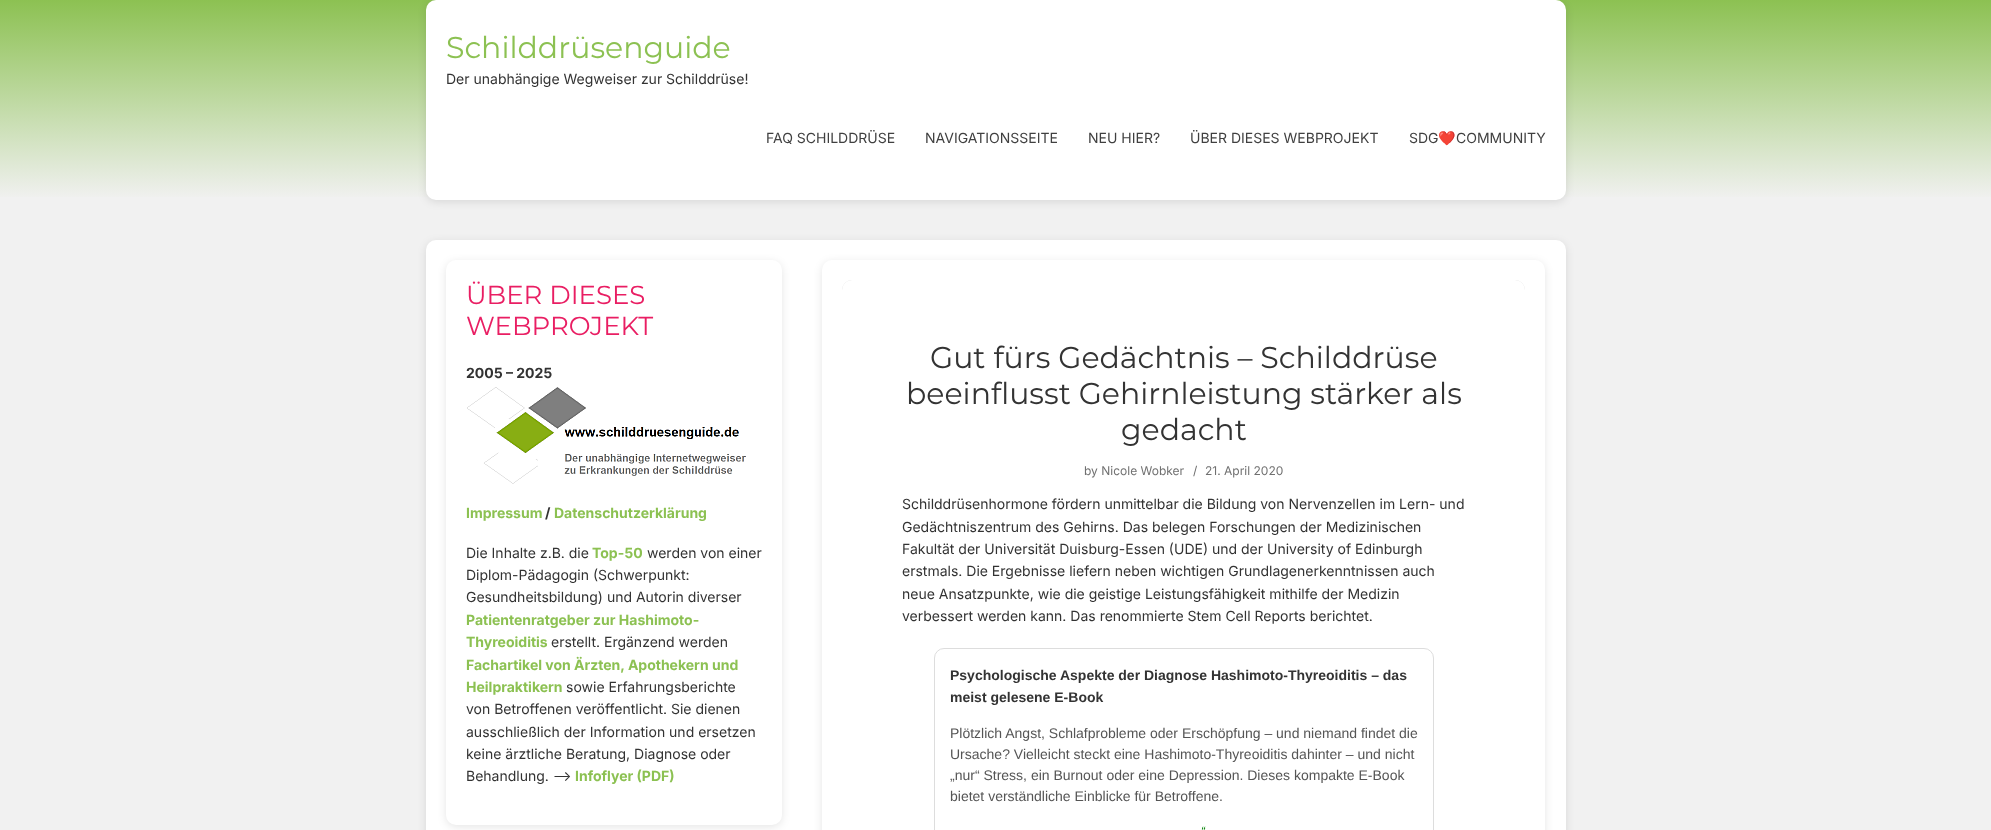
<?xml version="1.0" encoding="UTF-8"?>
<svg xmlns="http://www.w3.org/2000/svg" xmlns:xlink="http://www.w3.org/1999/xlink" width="1991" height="830">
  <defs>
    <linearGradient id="g1" gradientUnits="userSpaceOnUse" x1="996" y1="0" x2="996" y2="200"><stop offset="0" stop-color="#8cc152" /><stop offset="1" stop-color="#f1f1f1" /></linearGradient>
  </defs>
  <rect width="100%" height="100%" fill="#f1f1f1" />
  <rect width="1991" height="197" fill="url(#g1)" />
  <rect x="426" y="2" width="1140" height="200" rx="10" fill="#000000" fill-opacity="0.1" filter="blur(4px)" />
  <rect x="426" width="1140" height="200" rx="10" fill="#ffffff" />
  <rect x="426" y="242" width="1140" height="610" rx="10" fill="#000000" fill-opacity="0.1" filter="blur(4px)" />
  <rect x="426" y="240" width="1140" height="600" rx="10" fill="#ffffff" />
  <rect x="446" y="262" width="336" height="565" rx="10" fill="#000000" fill-opacity="0.1" filter="blur(4px)" />
  <rect x="446" y="260" width="336" height="565" rx="10" fill="#ffffff" />
  <image x="467" y="387" width="279" height="97" xlink:href="image1.png" />
  <rect x="822" y="262" width="723" height="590" rx="10" fill="#000000" fill-opacity="0.1" filter="blur(4px)" />
  <rect x="822" y="260" width="723" height="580" rx="10" fill="#ffffff" />
  <rect x="842" y="280" width="683" height="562" rx="10" fill="#000000" fill-opacity="0.15" filter="blur(0.5px)" />
  <rect x="842" y="280" width="683" height="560" rx="10" fill="#ffffff" />
  <rect x="934.5" y="648.5" width="499" height="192" rx="9.5" fill="none" stroke="#dddddd" />
  <text x="446" y="58" style="font-family: Montserrat; font-size: 30px; fill: #8cc152">Schilddrüsenguide</text>
  <text x="446" y="84" style="font-family: Inter; font-size: 14px; fill: #333333">Der unabhängige Wegweiser zur Schilddrüse!</text>
  <text x="766" y="143" style="font-family: Inter; font-size: 14px; fill: #404040">FAQ SCHILDDRÜSE</text>
  <text x="925" y="143" style="font-family: Inter; font-size: 14px; fill: #404040">NAVIGATIONSSEITE</text>
  <text x="1088" y="143" style="font-family: Inter; font-size: 14px; fill: #404040">NEU HIER?</text>
  <text x="1190" y="143" style="font-family: Inter; font-size: 14px; fill: #404040">ÜBER DIESES WEBPROJEKT</text>
  <text x="1409" y="143" style="font-family: Inter; font-size: 14px; fill: #404040">SDG</text>
  <text x="1438" y="143" style="font-family: Noto Color Emoji; font-size: 14px; fill: #404040">❤️</text>
  <text x="1456" y="143" style="font-family: Inter; font-size: 14px; fill: #404040">COMMUNITY</text>
  <text x="466" y="304" style="font-family: Montserrat; font-size: 26px; fill: #e91e63">ÜBER DIESES</text>
  <text x="466" y="335" style="font-family: Montserrat; font-size: 26px; fill: #e91e63">WEBPROJEKT</text>
  <text x="466" y="378" style="font-family: Inter; font-size: 14px; font-weight: bold; fill: #333333">2005 – 2025</text>
  <text x="466" y="518" style="font-family: Inter; font-size: 14px; font-weight: bold; fill: #8cc152">Impressum</text>
  <text x="545" y="518" style="font-family: Inter; font-size: 14px; font-weight: bold; fill: #333333">/</text>
  <text x="554" y="518" style="font-family: Inter; font-size: 14px; font-weight: bold; fill: #8cc152">Datenschutzerklärung</text>
  <text x="466" y="558" style="font-family: Inter; font-size: 14px; fill: #333333">Die Inhalte z.B. die</text>
  <text x="592" y="558" style="font-family: Inter; font-size: 14px; font-weight: bold; fill: #8cc152">Top-50</text>
  <text x="647" y="558" style="font-family: Inter; font-size: 14px; fill: #333333">werden von einer</text>
  <text x="466" y="580" style="font-family: Inter; font-size: 14px; fill: #333333">Diplom-Pädagogin (Schwerpunkt:</text>
  <text x="466" y="602" style="font-family: Inter; font-size: 14px; fill: #333333">Gesundheitsbildung) und Autorin diverser</text>
  <text x="466" y="625" style="font-family: Inter; font-size: 14px; font-weight: bold; fill: #8cc152">Patientenratgeber zur Hashimoto-</text>
  <text x="466" y="647" style="font-family: Inter; font-size: 14px; font-weight: bold; fill: #8cc152">Thyreoiditis</text>
  <text x="551" y="647" style="font-family: Inter; font-size: 14px; fill: #333333">erstellt. Ergänzend werden</text>
  <text x="466" y="670" style="font-family: Inter; font-size: 14px; font-weight: bold; fill: #8cc152">Fachartikel von Ärzten, Apothekern und</text>
  <text x="466" y="692" style="font-family: Inter; font-size: 14px; font-weight: bold; fill: #8cc152">Heilpraktikern</text>
  <text x="566" y="692" style="font-family: Inter; font-size: 14px; fill: #333333">sowie Erfahrungsberichte</text>
  <text x="466" y="714" style="font-family: Inter; font-size: 14px; fill: #333333">von Betroffenen veröffentlicht. Sie dienen</text>
  <text x="466" y="737" style="font-family: Inter; font-size: 14px; fill: #333333">ausschließlich der Information und ersetzen</text>
  <text x="466" y="759" style="font-family: Inter; font-size: 14px; fill: #333333">keine ärztliche Beratung, Diagnose oder</text>
  <text x="466" y="781" style="font-family: Inter; font-size: 14px; fill: #333333">Behandlung. –&gt;</text>
  <text x="575" y="781" style="font-family: Inter; font-size: 14px; font-weight: bold; fill: #8cc152">Infoflyer (PDF)</text>
  <text x="930" y="368" style="font-family: Montserrat; font-size: 30px; fill: #333333">Gut fürs Gedächtnis – Schilddrüse</text>
  <text x="906" y="404" style="font-family: Montserrat; font-size: 30px; fill: #333333">beeinflusst Gehirnleistung stärker als</text>
  <text x="1121" y="440" style="font-family: Montserrat; font-size: 30px; fill: #333333">gedacht</text>
  <text x="1084" y="475" style="font-family: Inter; font-size: 12px; fill: #707070">by Nicole Wobker</text>
  <text x="1193" y="475" style="font-family: Inter; font-size: 12px; fill: #707070">/</text>
  <text x="1205" y="475" style="font-family: Inter; font-size: 12px; fill: #707070">21. April 2020</text>
  <text x="902" y="509" style="font-family: Inter; font-size: 14px; fill: #333333">Schilddrüsenhormone fördern unmittelbar die Bildung von Nervenzellen im Lern- und</text>
  <text x="902" y="532" style="font-family: Inter; font-size: 14px; fill: #333333">Gedächtniszentrum des Gehirns. Das belegen Forschungen der Medizinischen</text>
  <text x="902" y="554" style="font-family: Inter; font-size: 14px; fill: #333333">Fakultät der Universität Duisburg-Essen (UDE) und der University of Edinburgh</text>
  <text x="902" y="576" style="font-family: Inter; font-size: 14px; fill: #333333">erstmals. Die Ergebnisse liefern neben wichtigen Grundlagenerkenntnissen auch</text>
  <text x="902" y="599" style="font-family: Inter; font-size: 14px; fill: #333333">neue Ansatzpunkte, wie die geistige Leistungsfähigkeit mithilfe der Medizin</text>
  <text x="902" y="621" style="font-family: Inter; font-size: 14px; fill: #333333">verbessert werden kann. Das renommierte Stem Cell Reports berichtet.</text>
  <text x="950" y="680" style="font-family: Liberation Sans; font-size: 14px; font-weight: bold; fill: #333333">Psychologische Aspekte der Diagnose Hashimoto-Thyreoiditis – das</text>
  <text x="950" y="702" style="font-family: Liberation Sans; font-size: 14px; font-weight: bold; fill: #333333">meist gelesene E-Book</text>
  <text x="950" y="738" style="font-family: Liberation Sans; font-size: 14px; fill: #555555">Plötzlich Angst, Schlafprobleme oder Erschöpfung – und niemand findet die</text>
  <text x="950" y="759" style="font-family: Liberation Sans; font-size: 14px; fill: #555555">Ursache? Vielleicht steckt eine Hashimoto-Thyreoiditis dahinter – und nicht</text>
  <text x="950" y="780" style="font-family: Liberation Sans; font-size: 14px; fill: #555555">„nur“ Stress, ein Burnout oder eine Depression. Dieses kompakte E-Book</text>
  <text x="950" y="801" style="font-family: Liberation Sans; font-size: 14px; fill: #555555">bietet verständliche Einblicke für Betroffene.</text>
  <text x="1201" y="835" style="font-family: Liberation Sans; font-size: 12px; font-style: italic; fill: #008000">“</text>
</svg>
